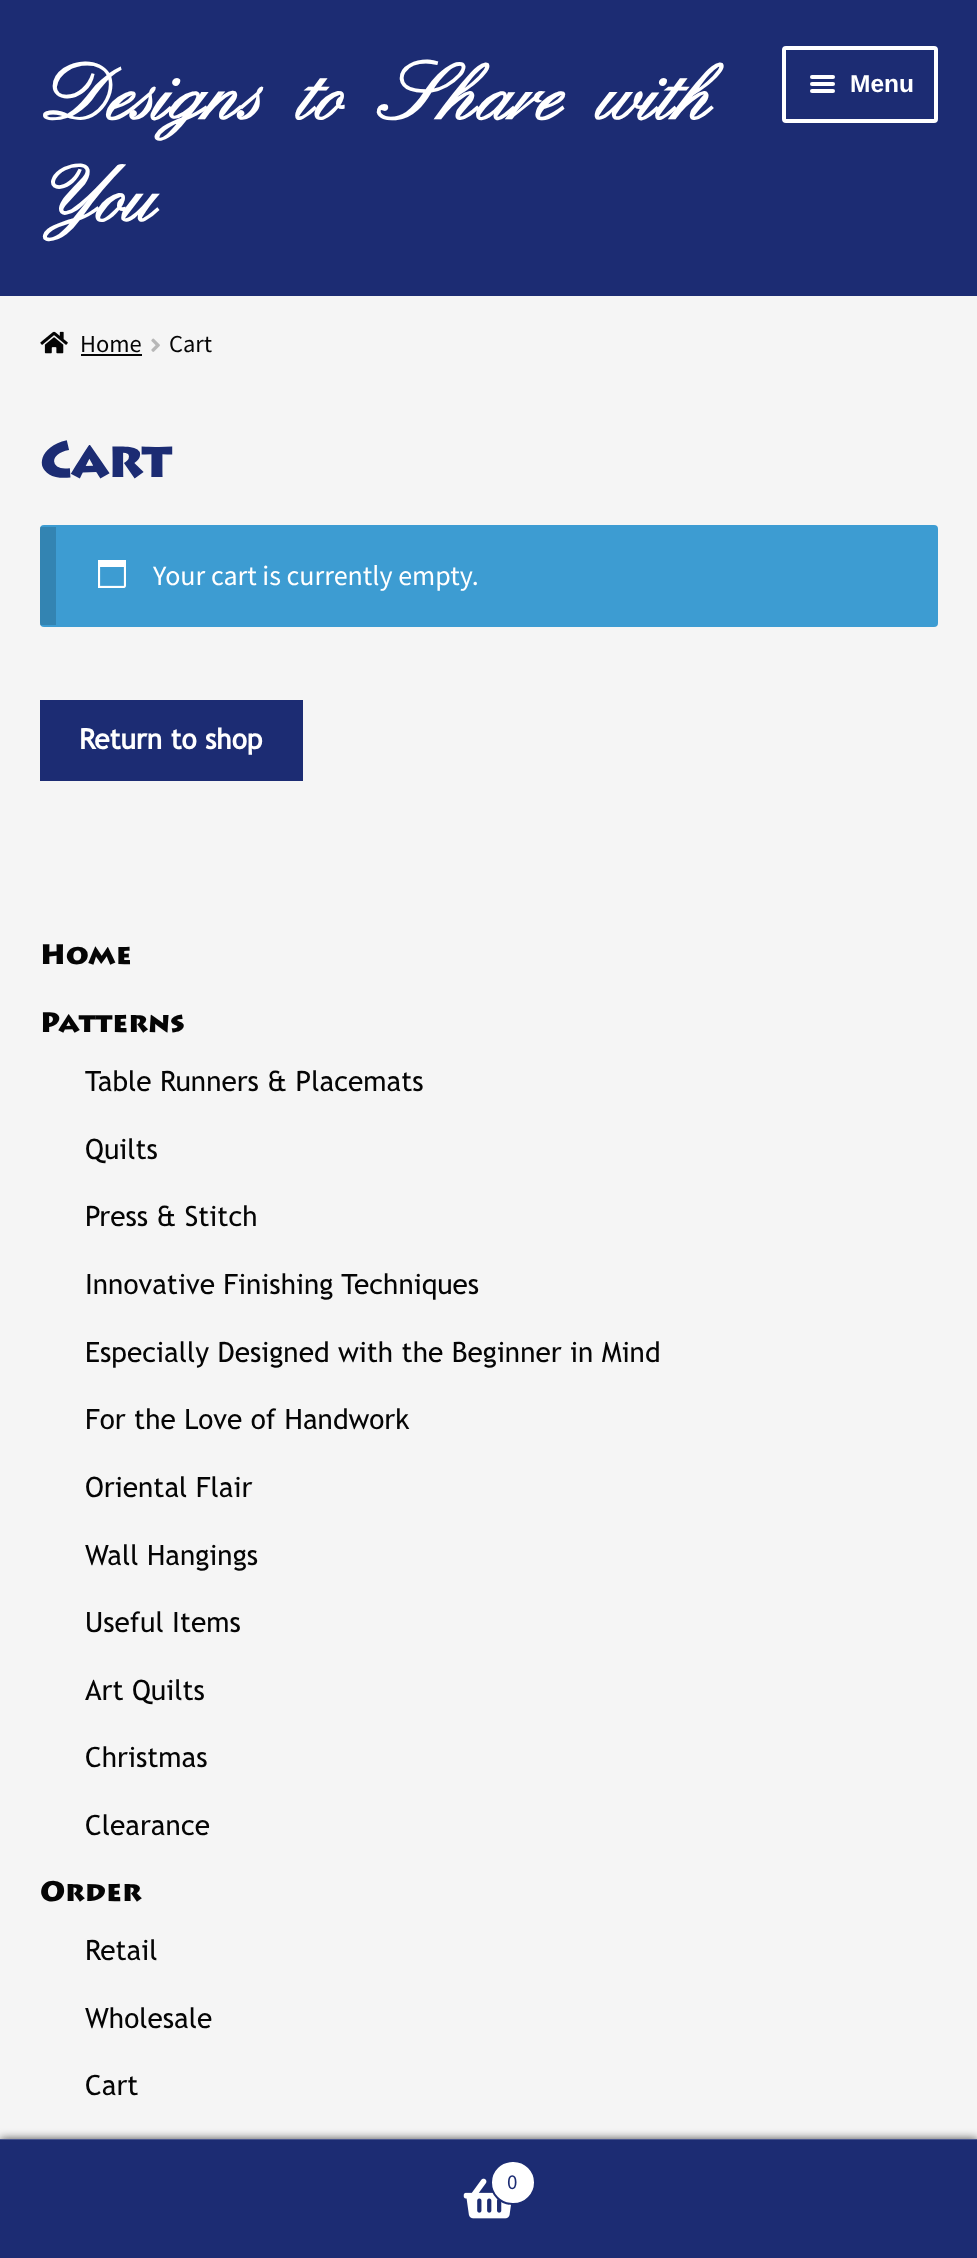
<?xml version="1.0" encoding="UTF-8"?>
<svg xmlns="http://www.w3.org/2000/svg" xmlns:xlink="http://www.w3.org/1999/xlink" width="977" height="2258">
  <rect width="100%" height="100%" fill="#f5f5f5" />
  <rect width="977" height="296" fill="#1c2c73" />
  <rect x="784" y="48" width="152" height="73" rx="2" fill="none" stroke="#ffffff" stroke-width="4" />
  <rect x="810" y="75" width="25" height="4" rx="2" fill="#ffffff" />
  <rect x="810" y="82" width="25" height="4" rx="2" fill="#ffffff" />
  <rect x="810" y="89" width="25" height="4" rx="2" fill="#ffffff" />
  <image x="40" y="331" width="28" height="23" xlink:href="image1.png" />
  <rect x="81" y="354" width="61" height="2" fill="#050505" />
  <image x="151" y="338" width="9" height="14" xlink:href="image2.png" />
  <rect x="40" y="525" width="898" height="102" rx="4" fill="#3d9cd2" />
  <rect x="40" y="527" width="16" height="98" fill="#000000" fill-opacity="0.15" />
  <image x="98" y="560" width="28" height="28" xlink:href="image3.png" />
  <rect x="40" y="700" width="263" height="81" fill="#1c2c73" />
  <rect y="2139" width="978" height="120" fill="#000000" fill-opacity="0.7" filter="blur(5px)" />
  <rect y="2139" width="977" height="1" fill="#49568f" />
  <rect y="2140" width="977" height="118" fill="#1c2c73" />
  <image x="463" y="2178" width="49" height="41" xlink:href="image4.png" />
  <rect x="491" y="2161" width="44" height="43" rx="21.5" fill="#ffffff" stroke="#1c2c73" stroke-width="2" />
  <text x="40" y="119" style="font-family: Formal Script; font-size: 84px; font-weight: bold; letter-spacing: -1.75px; fill: #ffffff">Designs to Share with</text>
  <text x="40" y="221" style="font-family: Formal Script; font-size: 84px; font-weight: bold; letter-spacing: -1.75px; fill: #ffffff">You</text>
  <text x="850" y="92" style="font-family: Liberation Sans; font-size: 24.5px; font-weight: bold; fill: #ffffff">Menu</text>
  <text x="80" y="352" style="font-family: Source Sans Pro; font-size: 24.5px; fill: #050505">Home</text>
  <text x="169" y="352" style="font-family: Source Sans Pro; font-size: 24.5px; fill: #050505">Cart</text>
  <text x="40" y="477" style="font-family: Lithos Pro; font-size: 50.5px; font-weight: 900; letter-spacing: -1.75px; fill: #1c2c73">Cart</text>
  <text x="153" y="585" style="font-family: Source Sans Pro; font-size: 28px; fill: #ffffff">Your cart is currently empty.</text>
  <text x="79" y="749" style="font-family: Trebuchet MS; font-size: 28px; font-weight: bold; fill: #ffffff">Return to shop</text>
  <text x="40" y="964" style="font-family: Lithos Pro; font-size: 28px; font-weight: 900; fill: #050505">Home</text>
  <text x="40" y="1032" style="font-family: Lithos Pro; font-size: 28px; font-weight: 900; fill: #050505">Patterns</text>
  <text x="85" y="1091" style="font-family: Trebuchet MS; font-size: 28px; fill: #050505">Table Runners &amp; Placemats</text>
  <text x="85" y="1159" style="font-family: Trebuchet MS; font-size: 28px; fill: #050505">Quilts</text>
  <text x="85" y="1226" style="font-family: Trebuchet MS; font-size: 28px; fill: #050505">Press &amp; Stitch</text>
  <text x="85" y="1294" style="font-family: Trebuchet MS; font-size: 28px; fill: #050505">Innovative Finishing Techniques</text>
  <text x="85" y="1362" style="font-family: Trebuchet MS; font-size: 28px; fill: #050505">Especially Designed with the Beginner in Mind</text>
  <text x="85" y="1429" style="font-family: Trebuchet MS; font-size: 28px; fill: #050505">For the Love of Handwork</text>
  <text x="85" y="1497" style="font-family: Trebuchet MS; font-size: 28px; fill: #050505">Oriental Flair</text>
  <text x="85" y="1565" style="font-family: Trebuchet MS; font-size: 28px; fill: #050505">Wall Hangings</text>
  <text x="85" y="1632" style="font-family: Trebuchet MS; font-size: 28px; fill: #050505">Useful Items</text>
  <text x="85" y="1700" style="font-family: Trebuchet MS; font-size: 28px; fill: #050505">Art Quilts</text>
  <text x="85" y="1767" style="font-family: Trebuchet MS; font-size: 28px; fill: #050505">Christmas</text>
  <text x="85" y="1835" style="font-family: Trebuchet MS; font-size: 28px; fill: #050505">Clearance</text>
  <text x="40" y="1901" style="font-family: Lithos Pro; font-size: 28px; font-weight: 900; fill: #050505">Order</text>
  <text x="85" y="1960" style="font-family: Trebuchet MS; font-size: 28px; fill: #050505">Retail</text>
  <text x="85" y="2028" style="font-family: Trebuchet MS; font-size: 28px; fill: #050505">Wholesale</text>
  <text x="85" y="2095" style="font-family: Trebuchet MS; font-size: 28px; fill: #050505">Cart</text>
  <text x="507" y="2189" style="font-family: Source Sans Pro; font-size: 21px; fill: #1c2c73">0</text>
</svg>
